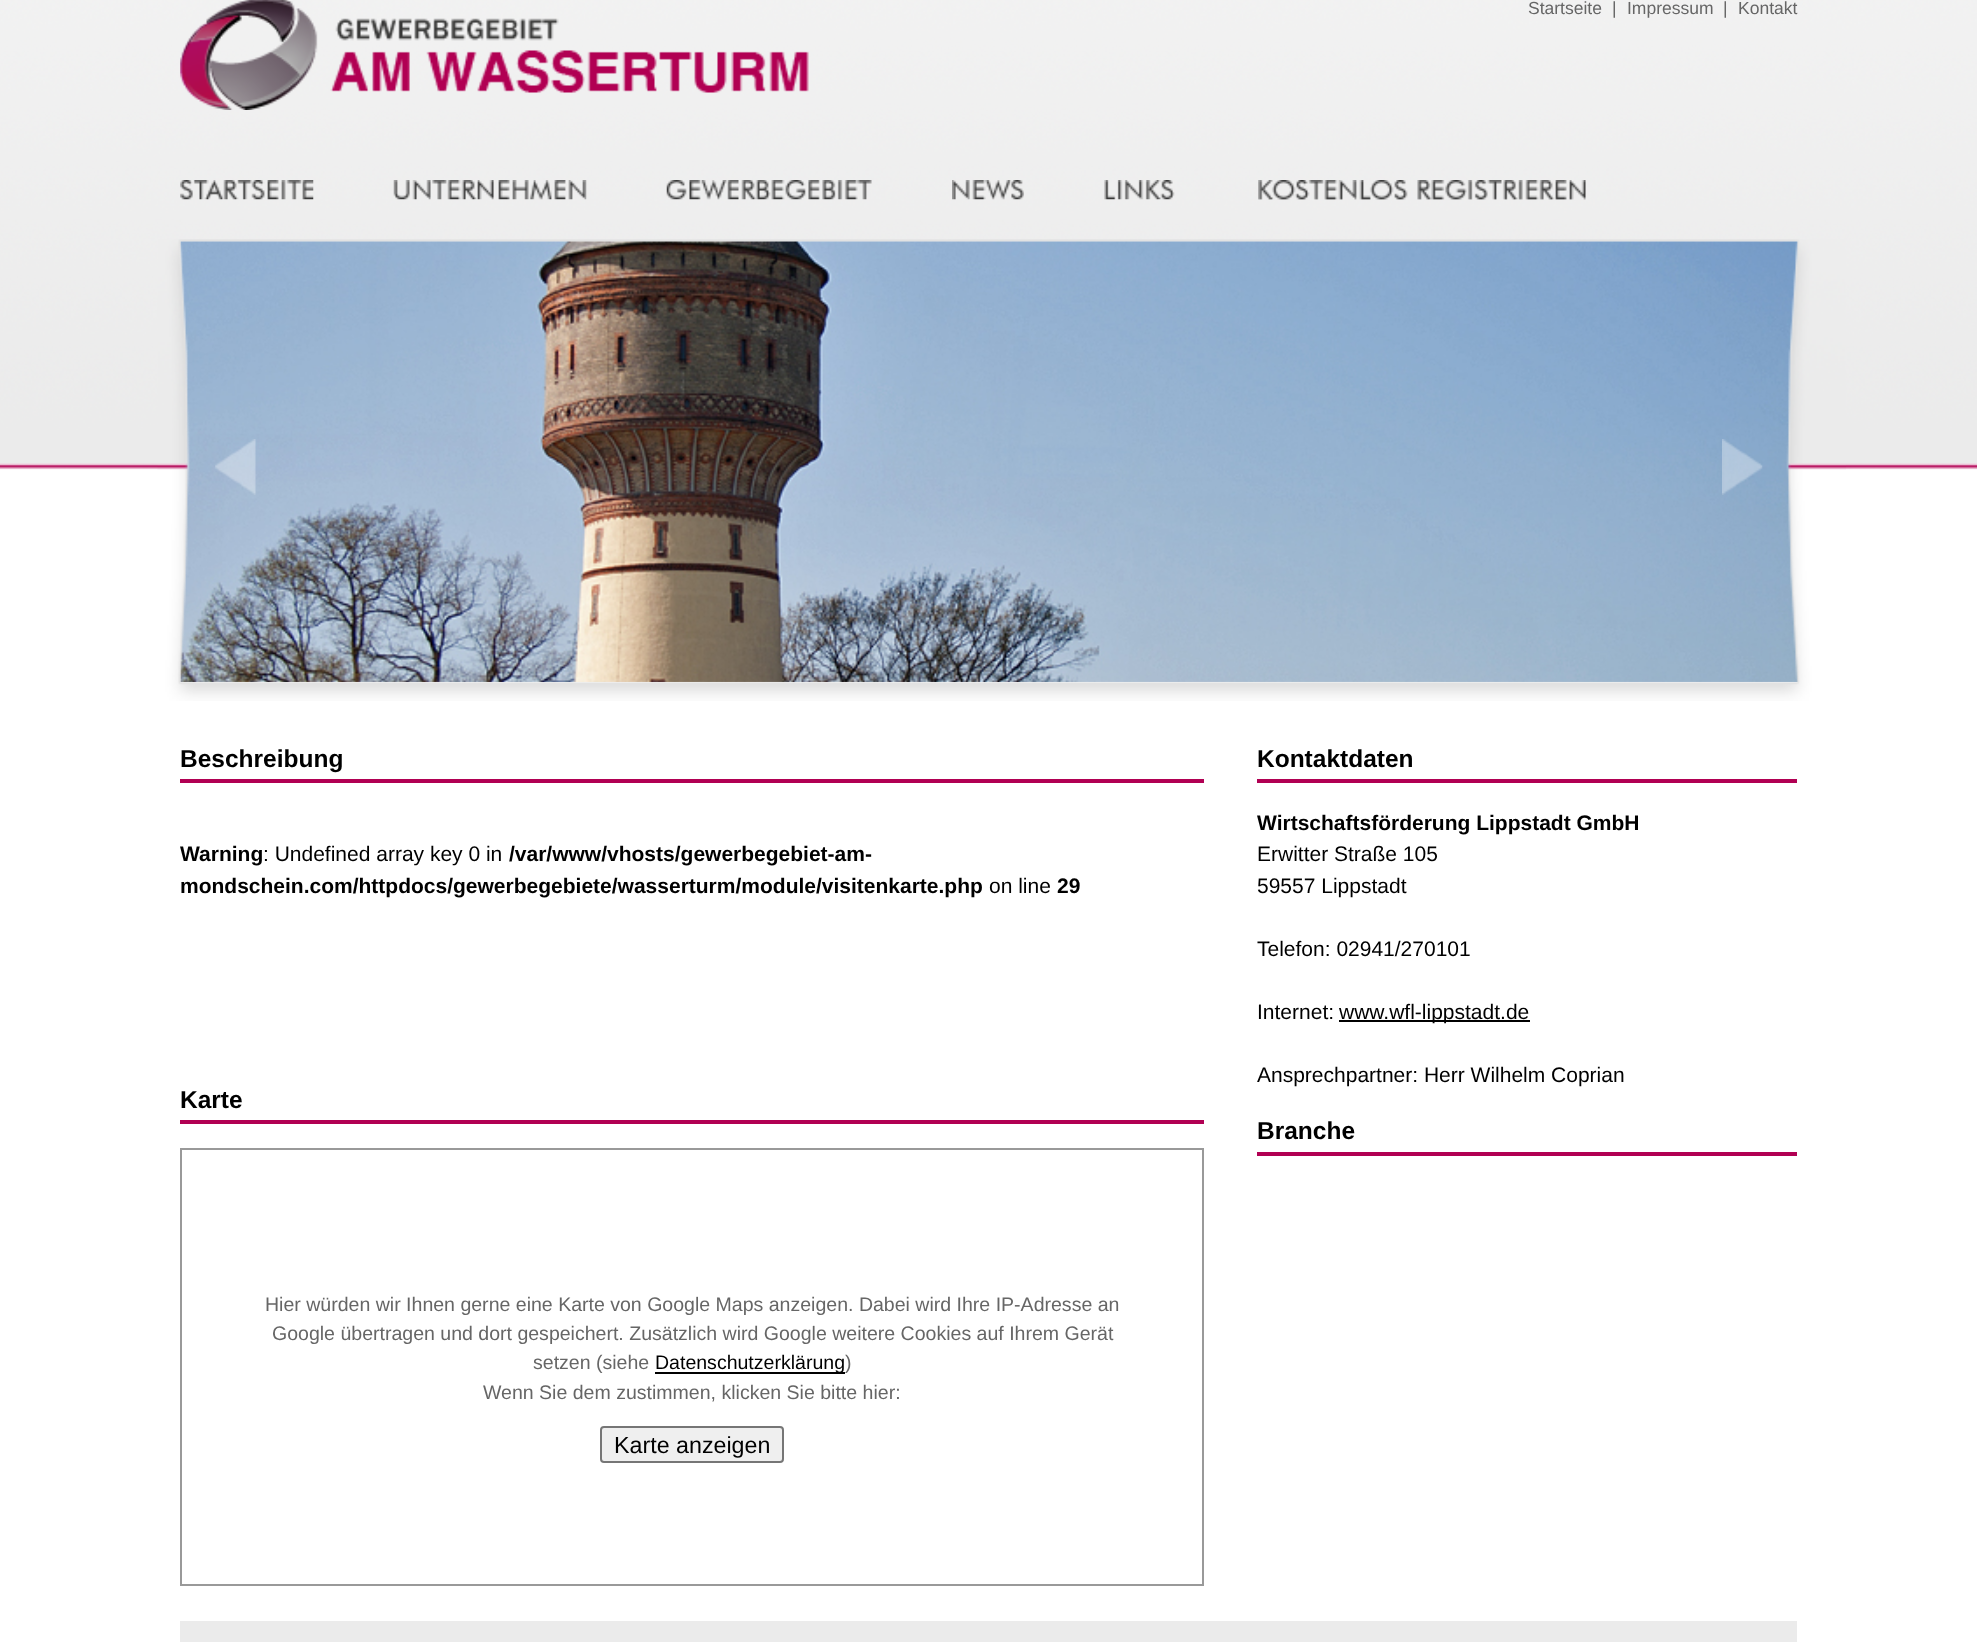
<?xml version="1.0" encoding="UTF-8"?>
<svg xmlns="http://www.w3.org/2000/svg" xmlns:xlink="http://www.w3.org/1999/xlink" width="1977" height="1642">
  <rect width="100%" height="100%" fill="#ffffff" />
  <image x="0" y="0" width="1977" height="470" xlink:href="image1.png" />
  <image x="180" y="0" width="629" height="110" xlink:href="image2.png" />
  <image x="180" y="180" width="134" height="20" xlink:href="image3.png" />
  <image x="393" y="180" width="194" height="20" xlink:href="image4.png" />
  <image x="666" y="180" width="206" height="20" xlink:href="image5.png" />
  <image x="952" y="180" width="72" height="20" xlink:href="image6.png" />
  <image x="1104" y="180" width="71" height="20" xlink:href="image7.png" />
  <image x="1258" y="180" width="328" height="20" xlink:href="image8.png" />
  <image x="180" y="241" width="1618" height="442" xlink:href="image10.png" />
  <image x="157" y="239" width="1689" height="462" xlink:href="image9.png" />
  <image x="215" y="439" width="41" height="56" xlink:href="image11.png" />
  <image x="1722" y="439" width="41" height="56" xlink:href="image12.png" />
  <rect x="180" y="779" width="1024" height="4" fill="#b10053" />
  <rect x="180" y="1120" width="1024" height="4" fill="#b10053" />
  <rect x="181" y="1149" width="1022" height="436" fill="none" stroke="#999999" stroke-width="2" />
  <rect x="655" y="1372" width="190" height="2" fill="#000000" />
  <rect x="601" y="1427" width="182" height="35" rx="3" fill="#efefef" stroke="#767676" stroke-width="2" />
  <rect x="1257" y="779" width="540" height="4" fill="#b10053" />
  <rect x="1339" y="1020" width="191" height="2" fill="#000000" />
  <rect x="1257" y="1152" width="540" height="4" fill="#b10053" />
  <rect x="180" y="1621" width="1617" height="21" fill="#ebebeb" />
  <text x="1528" y="14" style="font-family: Liberation Sans; font-size: 17.5px; fill: #666666">Startseite</text>
  <text x="1612" y="14" style="font-family: Liberation Sans; font-size: 17.5px; fill: #666666">|</text>
  <text x="1627" y="14" style="font-family: Liberation Sans; font-size: 17.5px; fill: #666666">Impressum</text>
  <text x="1723" y="14" style="font-family: Liberation Sans; font-size: 17.5px; fill: #666666">|</text>
  <text x="1738" y="14" style="font-family: Liberation Sans; font-size: 17.5px; fill: #666666">Kontakt</text>
  <text x="180" y="767" style="font-family: Liberation Sans; font-size: 24.5px; font-weight: bold; fill: #000000">Beschreibung</text>
  <text x="180" y="861" style="font-family: Liberation Sans; font-size: 21px; font-weight: bold; fill: #000000">Warning</text>
  <text x="263" y="861" style="font-family: Liberation Sans; font-size: 21px; fill: #000000">: Undefined array key 0 in</text>
  <text x="509" y="861" style="font-family: Liberation Sans; font-size: 21px; font-weight: bold; fill: #000000">/var/www/vhosts/gewerbegebiet-am-</text>
  <text x="180" y="893" style="font-family: Liberation Sans; font-size: 21px; font-weight: bold; fill: #000000">mondschein.com/httpdocs/gewerbegebiete/wasserturm/module/visitenkarte.php</text>
  <text x="989" y="893" style="font-family: Liberation Sans; font-size: 21px; fill: #000000">on line</text>
  <text x="1057" y="893" style="font-family: Liberation Sans; font-size: 21px; font-weight: bold; fill: #000000">29</text>
  <text x="180" y="1108" style="font-family: Liberation Sans; font-size: 24.5px; font-weight: bold; fill: #000000">Karte</text>
  <text x="265" y="1311" style="font-family: Liberation Sans; font-size: 19.55px; fill: #666666">Hier würden wir Ihnen gerne eine Karte von Google Maps anzeigen. Dabei wird Ihre IP-Adresse an</text>
  <text x="272" y="1340" style="font-family: Liberation Sans; font-size: 19.55px; fill: #666666">Google übertragen und dort gespeichert. Zusätzlich wird Google weitere Cookies auf Ihrem Gerät</text>
  <text x="533" y="1369" style="font-family: Liberation Sans; font-size: 19.55px; fill: #666666">setzen (siehe</text>
  <text x="655" y="1369" style="font-family: Liberation Sans; font-size: 19.55px; fill: #000000">Datenschutzerklärung</text>
  <text x="845" y="1369" style="font-family: Liberation Sans; font-size: 19.55px; fill: #666666">)</text>
  <text x="483" y="1399" style="font-family: Liberation Sans; font-size: 19.55px; fill: #666666">Wenn Sie dem zustimmen, klicken Sie bitte hier:</text>
  <text x="614" y="1453" style="font-family: Liberation Sans; font-size: 23.25px; fill: #000000">Karte anzeigen</text>
  <text x="1257" y="767" style="font-family: Liberation Sans; font-size: 24.5px; font-weight: bold; fill: #000000">Kontaktdaten</text>
  <text x="1257" y="830" style="font-family: Liberation Sans; font-size: 21px; font-weight: bold; fill: #000000">Wirtschaftsförderung Lippstadt GmbH</text>
  <text x="1257" y="861" style="font-family: Liberation Sans; font-size: 21px; fill: #000000">Erwitter Straße 105</text>
  <text x="1257" y="893" style="font-family: Liberation Sans; font-size: 21px; fill: #000000">59557 Lippstadt</text>
  <text x="1257" y="956" style="font-family: Liberation Sans; font-size: 21px; fill: #000000">Telefon: 02941/270101</text>
  <text x="1257" y="1019" style="font-family: Liberation Sans; font-size: 21px; fill: #000000">Internet:</text>
  <text x="1339" y="1019" style="font-family: Liberation Sans; font-size: 21px; fill: #000000">www.wfl-lippstadt.de</text>
  <text x="1257" y="1082" style="font-family: Liberation Sans; font-size: 21px; fill: #000000">Ansprechpartner: Herr Wilhelm Coprian</text>
  <text x="1257" y="1139" style="font-family: Liberation Sans; font-size: 24.5px; font-weight: bold; fill: #000000">Branche</text>
</svg>
